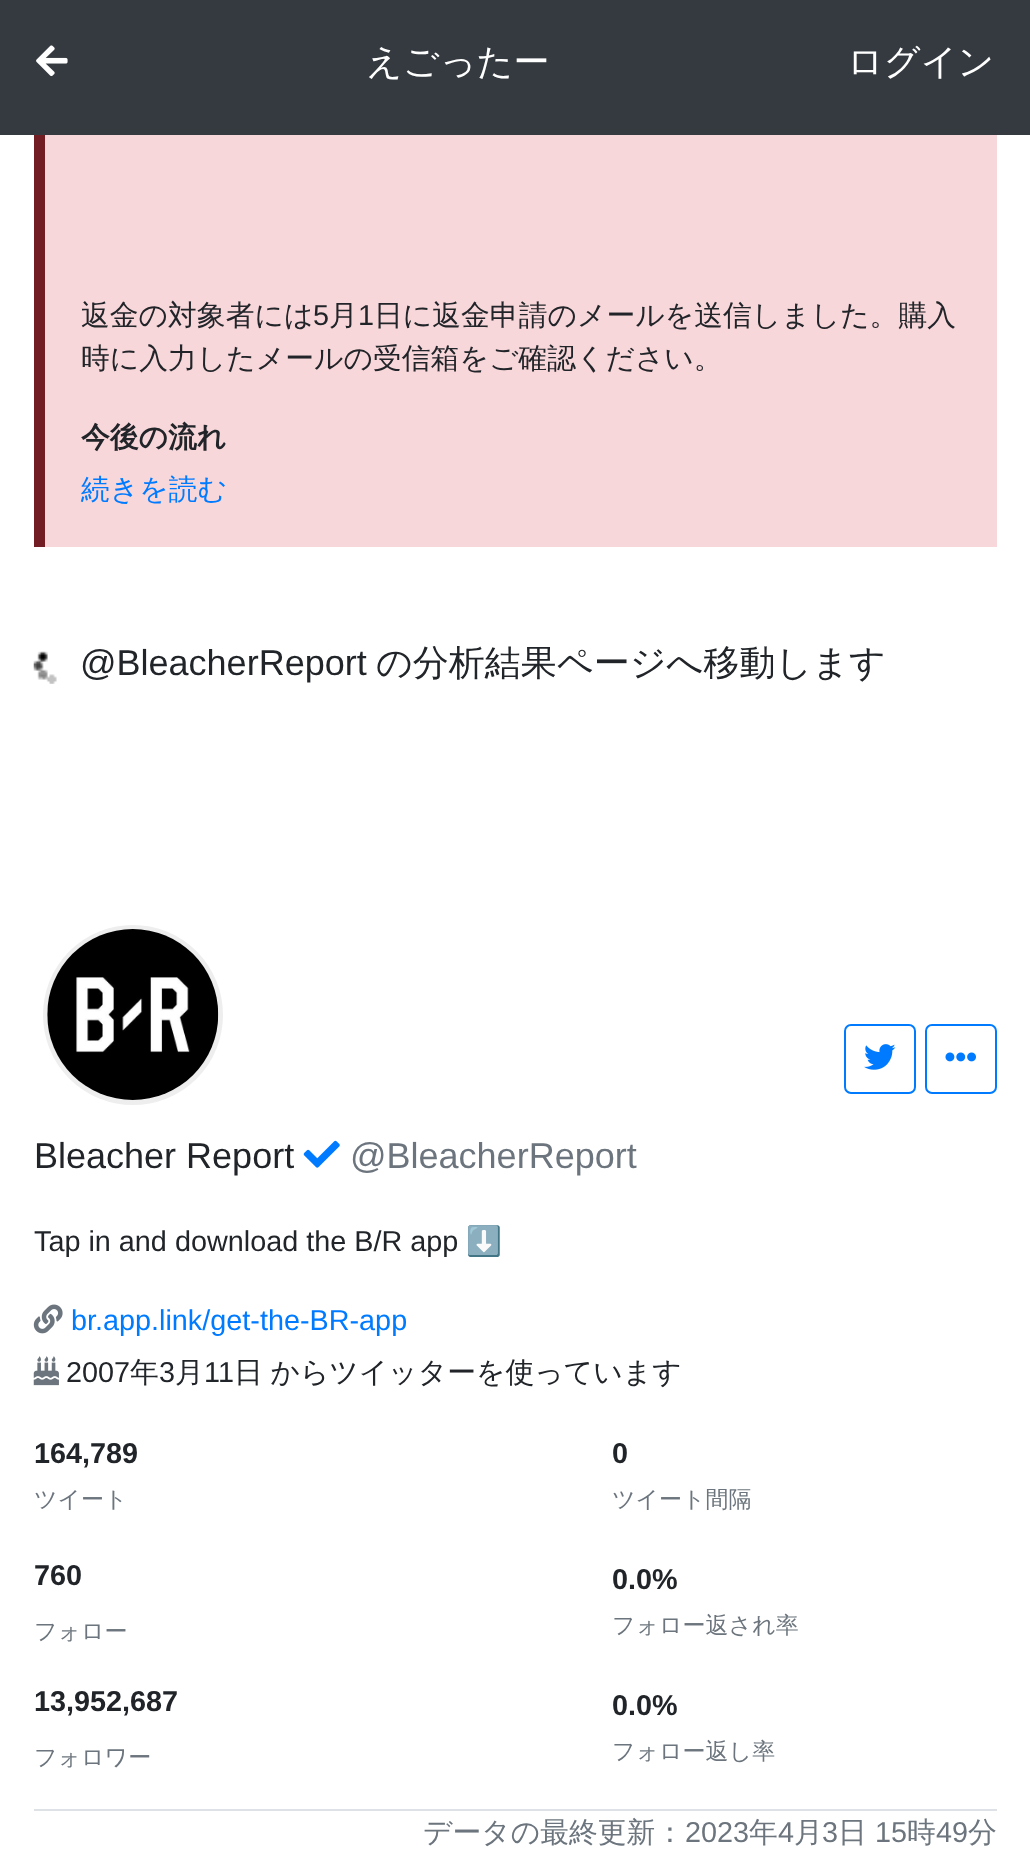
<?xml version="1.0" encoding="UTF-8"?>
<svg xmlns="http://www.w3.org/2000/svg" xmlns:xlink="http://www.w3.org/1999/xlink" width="1030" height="1853">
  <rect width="100%" height="100%" fill="#ffffff" />
  <rect width="1030" height="135" fill="#343a40" />
  <image x="36" y="45" width="32" height="32" xlink:href="image1.png" />
  <rect x="45" y="135" width="952" height="412" fill="#f8d7da" />
  <rect x="34" y="135" width="11" height="412" fill="#721c24" />
  <image x="33" y="651" width="24" height="33" xlink:href="image2.png" />
  <rect x="34" y="1809" width="963" height="2" fill="#dee2e6" />
  <circle cx="133" cy="1015" r="87.5" fill="none" stroke="#eeeeee" stroke-width="5" />
  <image x="47" y="929" width="172" height="171" xlink:href="image3.png" />
  <rect x="845" y="1025" width="70" height="68" rx="6" fill="none" stroke="#007bff" stroke-width="2" />
  <image x="864" y="1044" width="32" height="26" xlink:href="image4.png" />
  <rect x="926" y="1025" width="70" height="68" rx="6" fill="none" stroke="#007bff" stroke-width="2" />
  <image x="945" y="1052" width="31" height="10" xlink:href="image5.png" />
  <image x="303" y="1140" width="37" height="28" xlink:href="image6.png" />
  <image x="33" y="1304" width="30" height="30" xlink:href="image7.png" />
  <image x="33" y="1356" width="26" height="30" xlink:href="image8.png" />
  <text x="366" y="74" style="font-family: WenQuanYi Zen Hei; font-size: 36px; font-weight: 500; fill: #ffffff">えごったー</text>
  <text x="847" y="74" style="font-family: WenQuanYi Zen Hei; font-size: 36px; font-weight: 500; fill: #ffffff">ログイン</text>
  <text x="81" y="325" style="font-family: WenQuanYi Zen Hei; font-size: 28.8px; font-weight: 500; fill: #212529">返金の対象者には</text>
  <text x="313" y="325" style="font-family: Liberation Sans; font-size: 28.8px; fill: #212529">5</text>
  <text x="329" y="325" style="font-family: WenQuanYi Zen Hei; font-size: 28.8px; font-weight: 500; fill: #212529">月</text>
  <text x="358" y="325" style="font-family: Liberation Sans; font-size: 28.8px; fill: #212529">1</text>
  <text x="374" y="325" style="font-family: WenQuanYi Zen Hei; font-size: 28.8px; font-weight: 500; fill: #212529">日に返金申請のメールを送信しました。購入</text>
  <text x="81" y="368" style="font-family: WenQuanYi Zen Hei; font-size: 28.8px; font-weight: 500; fill: #212529">時に入力したメールの受信箱をご確認ください。</text>
  <text x="81" y="447" style="font-family: WenQuanYi Zen Hei; font-size: 28.8px; font-weight: bold; fill: #212529">今後の流れ</text>
  <text x="81" y="499" style="font-family: WenQuanYi Zen Hei; font-size: 28.8px; font-weight: 500; fill: #007bff">続きを読む</text>
  <text x="80" y="675" style="font-family: Liberation Sans; font-size: 36px; fill: #212529">@BleacherReport</text>
  <text x="376" y="675" style="font-family: WenQuanYi Zen Hei; font-size: 36px; font-weight: 500; fill: #212529">の分析結果ページへ移動します</text>
  <text x="34" y="1168" style="font-family: Liberation Sans; font-size: 36px; fill: #212529">Bleacher Report</text>
  <text x="350" y="1168" style="font-family: Liberation Sans; font-size: 36px; fill: #6c757d">@BleacherReport</text>
  <text x="34" y="1251" style="font-family: Liberation Sans; font-size: 28.8px; fill: #212529">Tap in and download the B/R app</text>
  <text x="466" y="1251" style="font-family: Noto Color Emoji; font-size: 28.8px; fill: #212529">⬇️</text>
  <text x="71" y="1330" style="font-family: Liberation Sans; font-size: 28.8px; fill: #007bff">br.app.link/get-the-BR-app</text>
  <text x="66" y="1382" style="font-family: Liberation Sans; font-size: 28.8px; fill: #212529">2007</text>
  <text x="130" y="1382" style="font-family: WenQuanYi Zen Hei; font-size: 28.8px; font-weight: 500; fill: #212529">年</text>
  <text x="159" y="1382" style="font-family: Liberation Sans; font-size: 28.8px; fill: #212529">3</text>
  <text x="175" y="1382" style="font-family: WenQuanYi Zen Hei; font-size: 28.8px; font-weight: 500; fill: #212529">月</text>
  <text x="204" y="1382" style="font-family: Liberation Sans; font-size: 28.8px; fill: #212529">11</text>
  <text x="234" y="1382" word-spacing="-1" style="font-family: WenQuanYi Zen Hei; font-size: 28.8px; font-weight: 500; fill: #212529">日 からツイッターを使っています</text>
  <text x="34" y="1463" style="font-family: Liberation Sans; font-size: 28.8px; font-weight: bold; fill: #212529">164,789</text>
  <text x="34" y="1507" style="font-family: WenQuanYi Zen Hei; font-size: 23px; font-weight: 500; fill: #6c757d">ツイート</text>
  <text x="612" y="1463" style="font-family: Liberation Sans; font-size: 28.8px; font-weight: bold; fill: #212529">0</text>
  <text x="612" y="1507" style="font-family: WenQuanYi Zen Hei; font-size: 23px; font-weight: 500; fill: #6c757d">ツイート間隔</text>
  <text x="34" y="1585" style="font-family: Liberation Sans; font-size: 28.8px; font-weight: bold; fill: #212529">760</text>
  <text x="34" y="1639" style="font-family: WenQuanYi Zen Hei; font-size: 23px; font-weight: 500; fill: #6c757d">フォロー</text>
  <text x="612" y="1589" style="font-family: Liberation Sans; font-size: 28.8px; font-weight: bold; fill: #212529">0.0%</text>
  <text x="612" y="1633" style="font-family: WenQuanYi Zen Hei; font-size: 23px; font-weight: 500; fill: #6c757d">フォロー返され率</text>
  <text x="34" y="1711" style="font-family: Liberation Sans; font-size: 28.8px; font-weight: bold; fill: #212529">13,952,687</text>
  <text x="34" y="1765" style="font-family: WenQuanYi Zen Hei; font-size: 23px; font-weight: 500; fill: #6c757d">フォロワー</text>
  <text x="612" y="1715" style="font-family: Liberation Sans; font-size: 28.8px; font-weight: bold; fill: #212529">0.0%</text>
  <text x="612" y="1759" style="font-family: WenQuanYi Zen Hei; font-size: 23px; font-weight: 500; fill: #6c757d">フォロー返し率</text>
  <text x="423" y="1842" style="font-family: WenQuanYi Zen Hei; font-size: 28.8px; font-weight: 500; fill: #6c757d">データの最終更新：</text>
  <text x="685" y="1842" style="font-family: Liberation Sans; font-size: 28.8px; fill: #6c757d">2023</text>
  <text x="749" y="1842" style="font-family: WenQuanYi Zen Hei; font-size: 28.8px; font-weight: 500; fill: #6c757d">年</text>
  <text x="778" y="1842" style="font-family: Liberation Sans; font-size: 28.8px; fill: #6c757d">4</text>
  <text x="794" y="1842" style="font-family: WenQuanYi Zen Hei; font-size: 28.8px; font-weight: 500; fill: #6c757d">月</text>
  <text x="822" y="1842" style="font-family: Liberation Sans; font-size: 28.8px; fill: #6c757d">3</text>
  <text x="838" y="1842" style="font-family: WenQuanYi Zen Hei; font-size: 28.8px; font-weight: 500; fill: #6c757d">日</text>
  <text x="875" y="1842" style="font-family: Liberation Sans; font-size: 28.8px; fill: #6c757d">15</text>
  <text x="907" y="1842" style="font-family: WenQuanYi Zen Hei; font-size: 28.8px; font-weight: 500; fill: #6c757d">時</text>
  <text x="936" y="1842" style="font-family: Liberation Sans; font-size: 28.8px; fill: #6c757d">49</text>
  <text x="968" y="1842" style="font-family: WenQuanYi Zen Hei; font-size: 28.8px; font-weight: 500; fill: #6c757d">分</text>
</svg>
